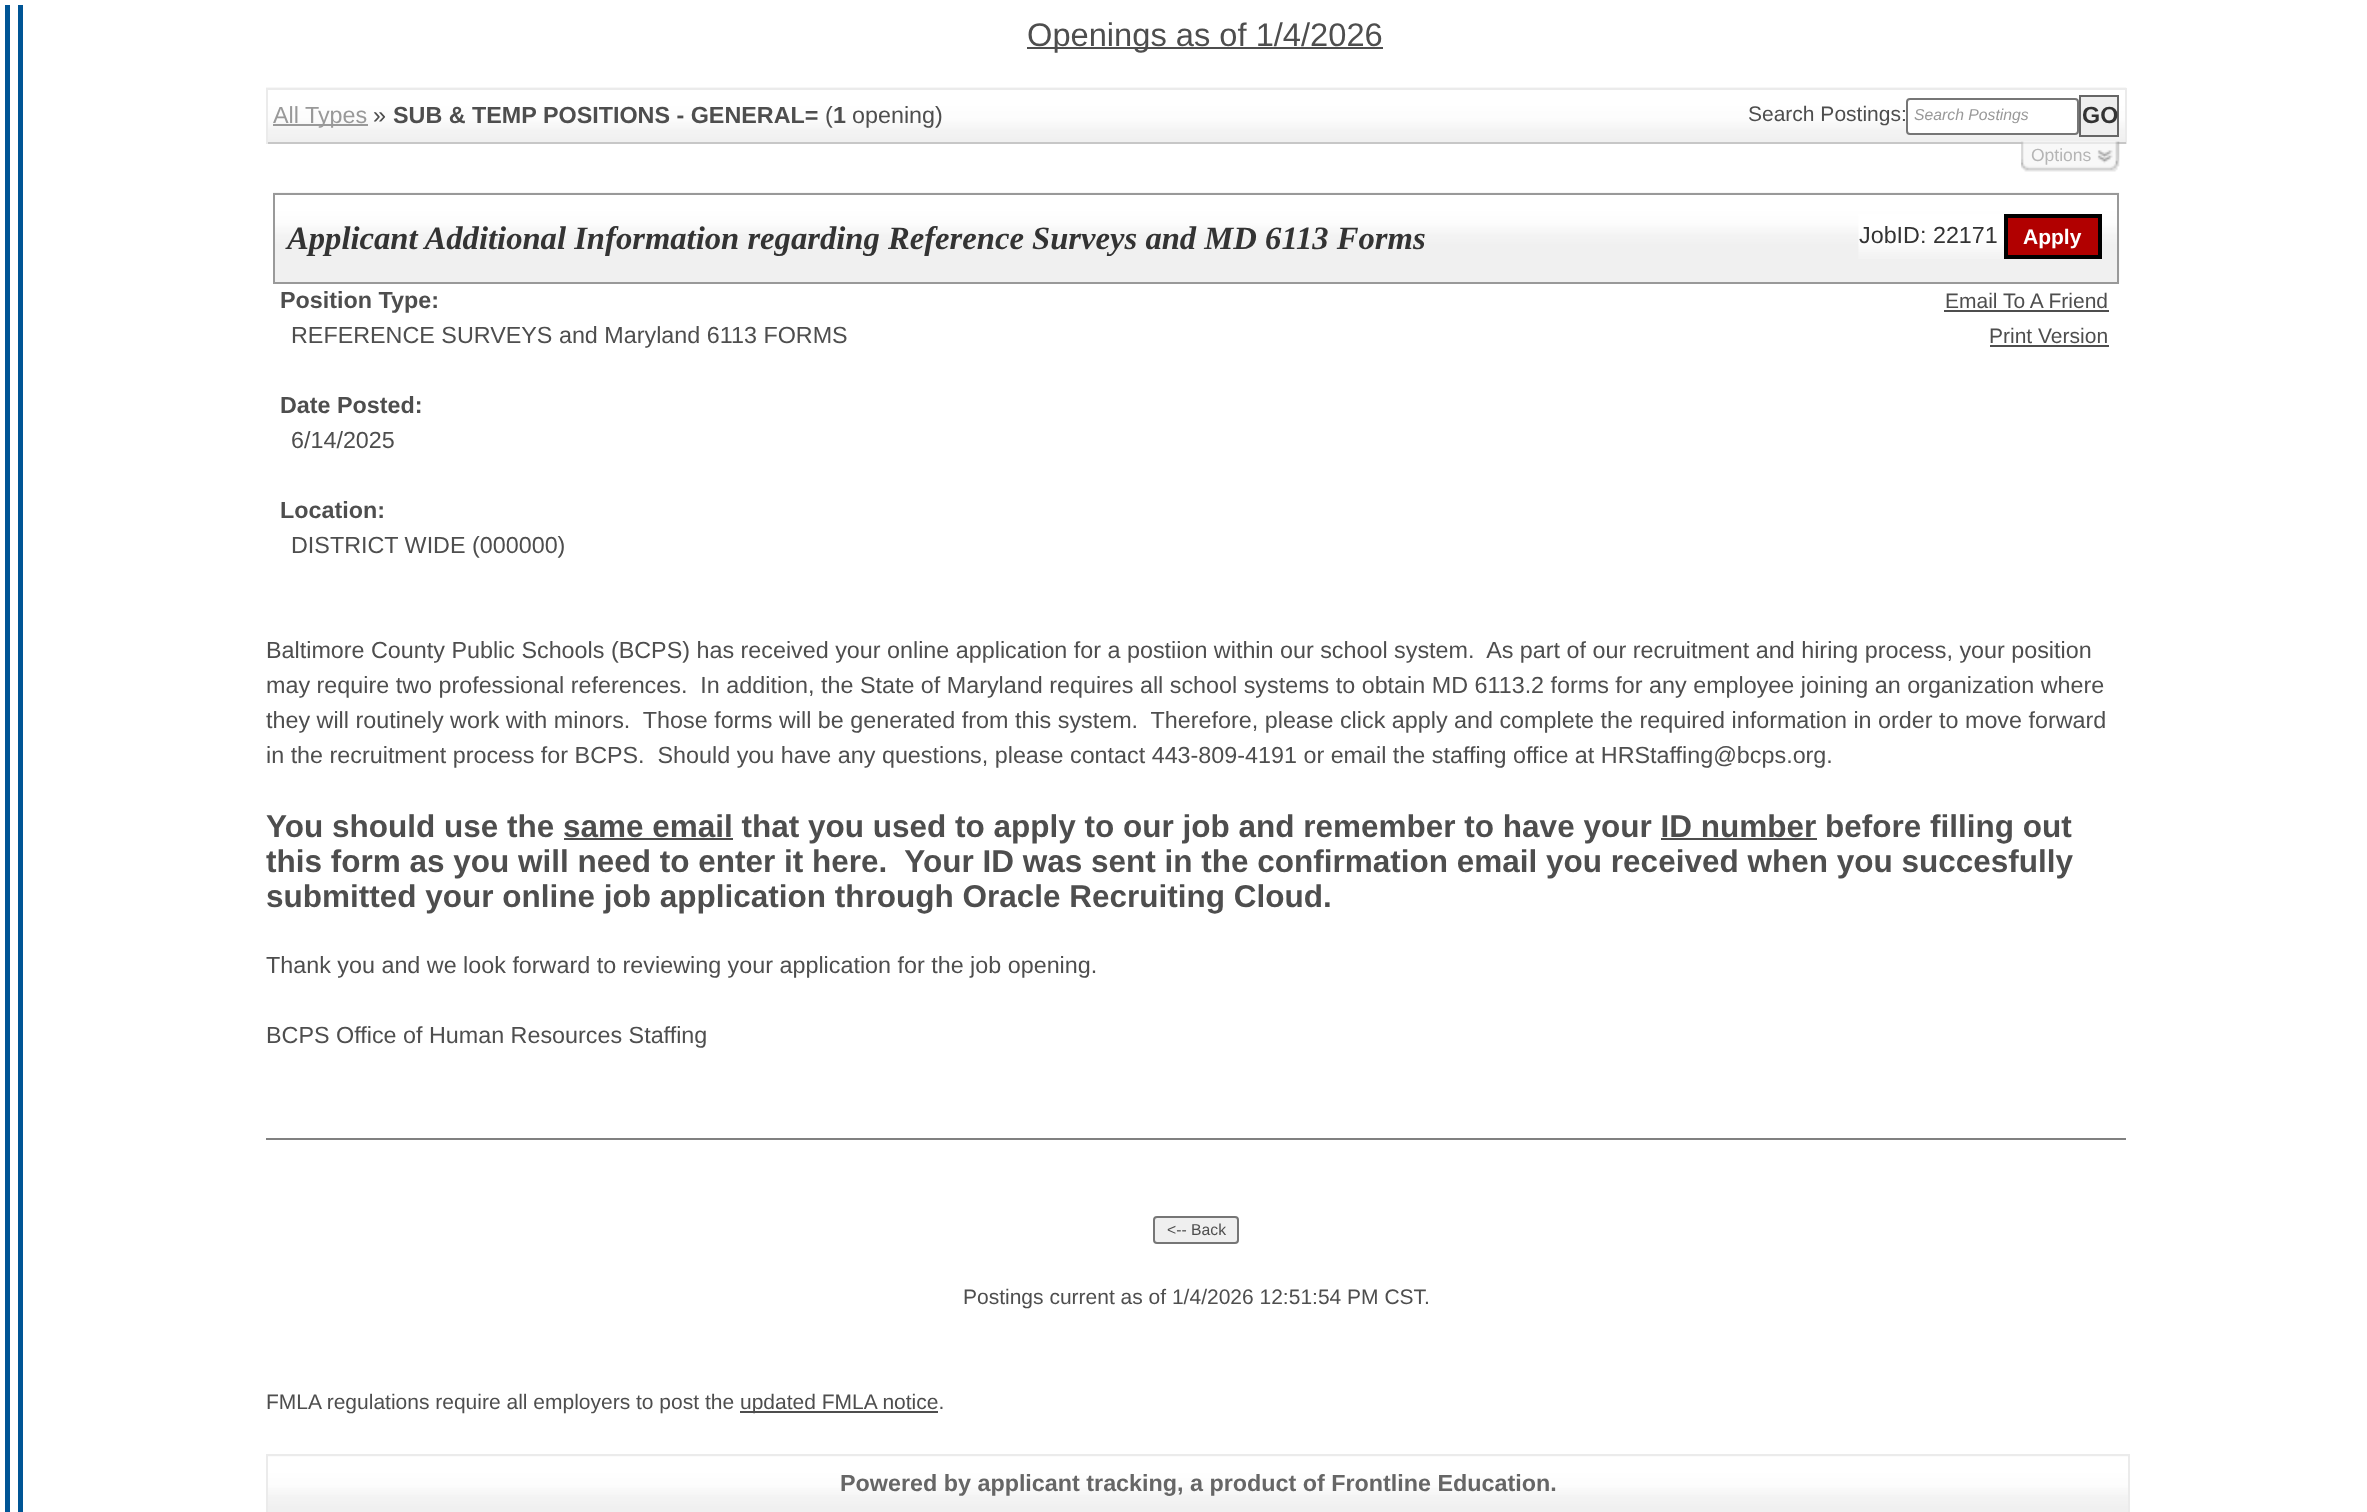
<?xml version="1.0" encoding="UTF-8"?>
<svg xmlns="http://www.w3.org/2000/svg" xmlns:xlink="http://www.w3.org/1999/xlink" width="2367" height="1512">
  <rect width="100%" height="100%" fill="#ffffff" />
  <rect x="5" y="5" width="5" height="1507" fill="#005595" />
  <rect x="18" y="5" width="5" height="1507" fill="#005595" />
  <rect x="1027" y="47" width="356" height="2" fill="#4e4e4e" />
  <image x="266" y="87" width="1861" height="55" xlink:href="image1.png" />
  <rect x="266" y="88" width="1860" height="2" fill="#ebebeb" />
  <rect x="2125" y="88" width="2" height="56" fill="#ebebeb" />
  <rect x="266" y="142" width="1860" height="2" fill="#c7c7c7" />
  <rect x="266" y="88" width="2" height="56" fill="#ebebeb" />
  <rect x="273" y="124" width="95" height="2" fill="#999999" />
  <rect x="1907" y="99" width="171" height="35" rx="3" fill="#ffffff" stroke="#767676" stroke-width="2" />
  <rect x="2080" y="96" width="38" height="40" fill="#eeeeee" stroke="#666666" stroke-width="2" />
  <image x="2021" y="141" width="99" height="31" xlink:href="image2.png" />
  <image x="273" y="192" width="1847" height="92" xlink:href="image3.png" />
  <rect x="274" y="194" width="1844" height="89" fill="none" stroke="#999999" stroke-width="2" />
  <image x="1858" y="214" width="146" height="45" xlink:href="image4.png" />
  <rect x="2006" y="216" width="94" height="41" fill="#b10000" stroke="#000000" stroke-width="4" />
  <rect x="1944" y="310" width="165" height="2" fill="#4e4e4e" />
  <rect x="1990" y="345" width="119" height="2" fill="#4e4e4e" />
  <rect x="564" y="838" width="169" height="2" fill="#4e4e4e" />
  <rect x="1661" y="838" width="156" height="2" fill="#4e4e4e" />
  <rect x="266" y="1138" width="1860" height="2" fill="#808080" />
  <rect x="1154" y="1217" width="84" height="26" rx="3" fill="#efefef" stroke="#767676" stroke-width="2" />
  <rect x="740" y="1411" width="198" height="2" fill="#4e4e4e" />
  <image x="268" y="1456" width="1860" height="56" xlink:href="image5.png" />
  <rect x="266" y="1454" width="1864" height="2" fill="#ebebeb" />
  <rect x="2128" y="1454" width="2" height="58" fill="#ebebeb" />
  <rect x="266" y="1454" width="2" height="58" fill="#ebebeb" />
  <text x="1027" y="46" style="font-family: Liberation Sans; font-size: 32.65px; fill: #4e4e4e">Openings as of 1/4/2026</text>
  <text x="273" y="123" style="font-family: Liberation Sans; font-size: 23.33px; fill: #999999">All Types</text>
  <text x="373" y="123" style="font-family: Liberation Sans; font-size: 23.33px; fill: #4e4e4e">»</text>
  <text x="393" y="123" style="font-family: Liberation Sans; font-size: 23.33px; font-weight: bold; fill: #4e4e4e">SUB &amp; TEMP POSITIONS - GENERAL=</text>
  <text x="825" y="123" style="font-family: Liberation Sans; font-size: 23.33px; fill: #4e4e4e">(</text>
  <text x="833" y="123" style="font-family: Liberation Sans; font-size: 23.33px; font-weight: bold; fill: #4e4e4e">1</text>
  <text x="852" y="123" style="font-family: Liberation Sans; font-size: 23.33px; fill: #4e4e4e">opening)</text>
  <text x="1748" y="121" style="font-family: Liberation Sans; font-size: 21px; fill: #4e4e4e">Search Postings:</text>
  <text x="1914" y="120" style="font-family: Liberation Sans; font-size: 15.75px; font-style: italic; fill: #999999">Search Postings</text>
  <text x="2082" y="123" style="font-family: Liberation Sans; font-size: 23.33px; font-weight: bold; fill: #333333">GO</text>
  <text x="2031" y="161" style="font-family: Liberation Sans; font-size: 17.5px; fill: #b5b5b5">Options</text>
  <text x="287" y="249" style="font-family: Liberation Serif; font-size: 32.65px; font-weight: bold; font-style: italic; fill: #333333">Applicant Additional Information regarding Reference Surveys and MD 6113 Forms</text>
  <text x="1859" y="243" style="font-family: Liberation Sans; font-size: 23.33px; fill: #333333">JobID: 22171</text>
  <text x="2023" y="244" style="font-family: Liberation Sans; font-size: 21px; font-weight: bold; fill: #ffffff">Apply</text>
  <text x="280" y="308" style="font-family: Liberation Sans; font-size: 23.33px; font-weight: bold; fill: #4e4e4e">Position Type:</text>
  <text x="291" y="343" style="font-family: Liberation Sans; font-size: 23.33px; fill: #4e4e4e">REFERENCE SURVEYS and Maryland 6113 FORMS</text>
  <text x="1945" y="308" style="font-family: Liberation Sans; font-size: 21px; fill: #4e4e4e">Email To A Friend</text>
  <text x="1989" y="343" style="font-family: Liberation Sans; font-size: 21px; fill: #4e4e4e">Print Version</text>
  <text x="280" y="413" style="font-family: Liberation Sans; font-size: 23.33px; font-weight: bold; fill: #4e4e4e">Date Posted:</text>
  <text x="291" y="448" style="font-family: Liberation Sans; font-size: 23.33px; fill: #4e4e4e">6/14/2025</text>
  <text x="280" y="518" style="font-family: Liberation Sans; font-size: 23.33px; font-weight: bold; fill: #4e4e4e">Location:</text>
  <text x="291" y="553" style="font-family: Liberation Sans; font-size: 23.33px; fill: #4e4e4e">DISTRICT WIDE (000000)</text>
  <text x="266" y="658" style="font-family: Liberation Sans; font-size: 23.33px; fill: #4e4e4e" xml:space="preserve">Baltimore County Public Schools (BCPS) has received your online application for a postiion within our school system.  As part of our recruitment and hiring process, your position</text>
  <text x="266" y="693" style="font-family: Liberation Sans; font-size: 23.33px; fill: #4e4e4e" xml:space="preserve">may require two professional references.  In addition, the State of Maryland requires all school systems to obtain MD 6113.2 forms for any employee joining an organization where</text>
  <text x="266" y="728" style="font-family: Liberation Sans; font-size: 23.33px; fill: #4e4e4e" xml:space="preserve">they will routinely work with minors.  Those forms will be generated from this system.  Therefore, please click apply and complete the required information in order to move forward</text>
  <text x="266" y="763" style="font-family: Liberation Sans; font-size: 23.33px; fill: #4e4e4e" xml:space="preserve">in the recruitment process for BCPS.  Should you have any questions, please contact 443-809-4191 or email the staffing office at HRStaffing@bcps.org.</text>
  <text x="266" y="837" style="font-family: Liberation Sans; font-size: 31.5px; font-weight: bold; fill: #4e4e4e">You should use the same email that you used to apply to our job and remember to have your ID number before filling out</text>
  <text x="266" y="872" style="font-family: Liberation Sans; font-size: 31.5px; font-weight: bold; fill: #4e4e4e" xml:space="preserve">this form as you will need to enter it here.  Your ID was sent in the confirmation email you received when you succesfully</text>
  <text x="266" y="907" style="font-family: Liberation Sans; font-size: 31.5px; font-weight: bold; fill: #4e4e4e">submitted your online job application through Oracle Recruiting Cloud.</text>
  <text x="266" y="973" style="font-family: Liberation Sans; font-size: 23.33px; fill: #4e4e4e">Thank you and we look forward to reviewing your application for the job opening.</text>
  <text x="266" y="1043" style="font-family: Liberation Sans; font-size: 23.33px; fill: #4e4e4e">BCPS Office of Human Resources Staffing</text>
  <text x="1167" y="1235" style="font-family: Liberation Sans; font-size: 15.75px; fill: #4e4e4e">&lt;-- Back</text>
  <text x="963" y="1304" style="font-family: Liberation Sans; font-size: 21px; fill: #4e4e4e">Postings current as of 1/4/2026 12:51:54 PM CST.</text>
  <text x="266" y="1409" style="font-family: Liberation Sans; font-size: 21px; fill: #4e4e4e">FMLA regulations require all employers to post the</text>
  <text x="740" y="1409" style="font-family: Liberation Sans; font-size: 21px; fill: #4e4e4e">updated FMLA notice.</text>
  <text x="840" y="1491" style="font-family: Liberation Sans; font-size: 23.33px; font-weight: bold; fill: #666666">Powered by applicant tracking, a product of Frontline Education.</text>
</svg>
